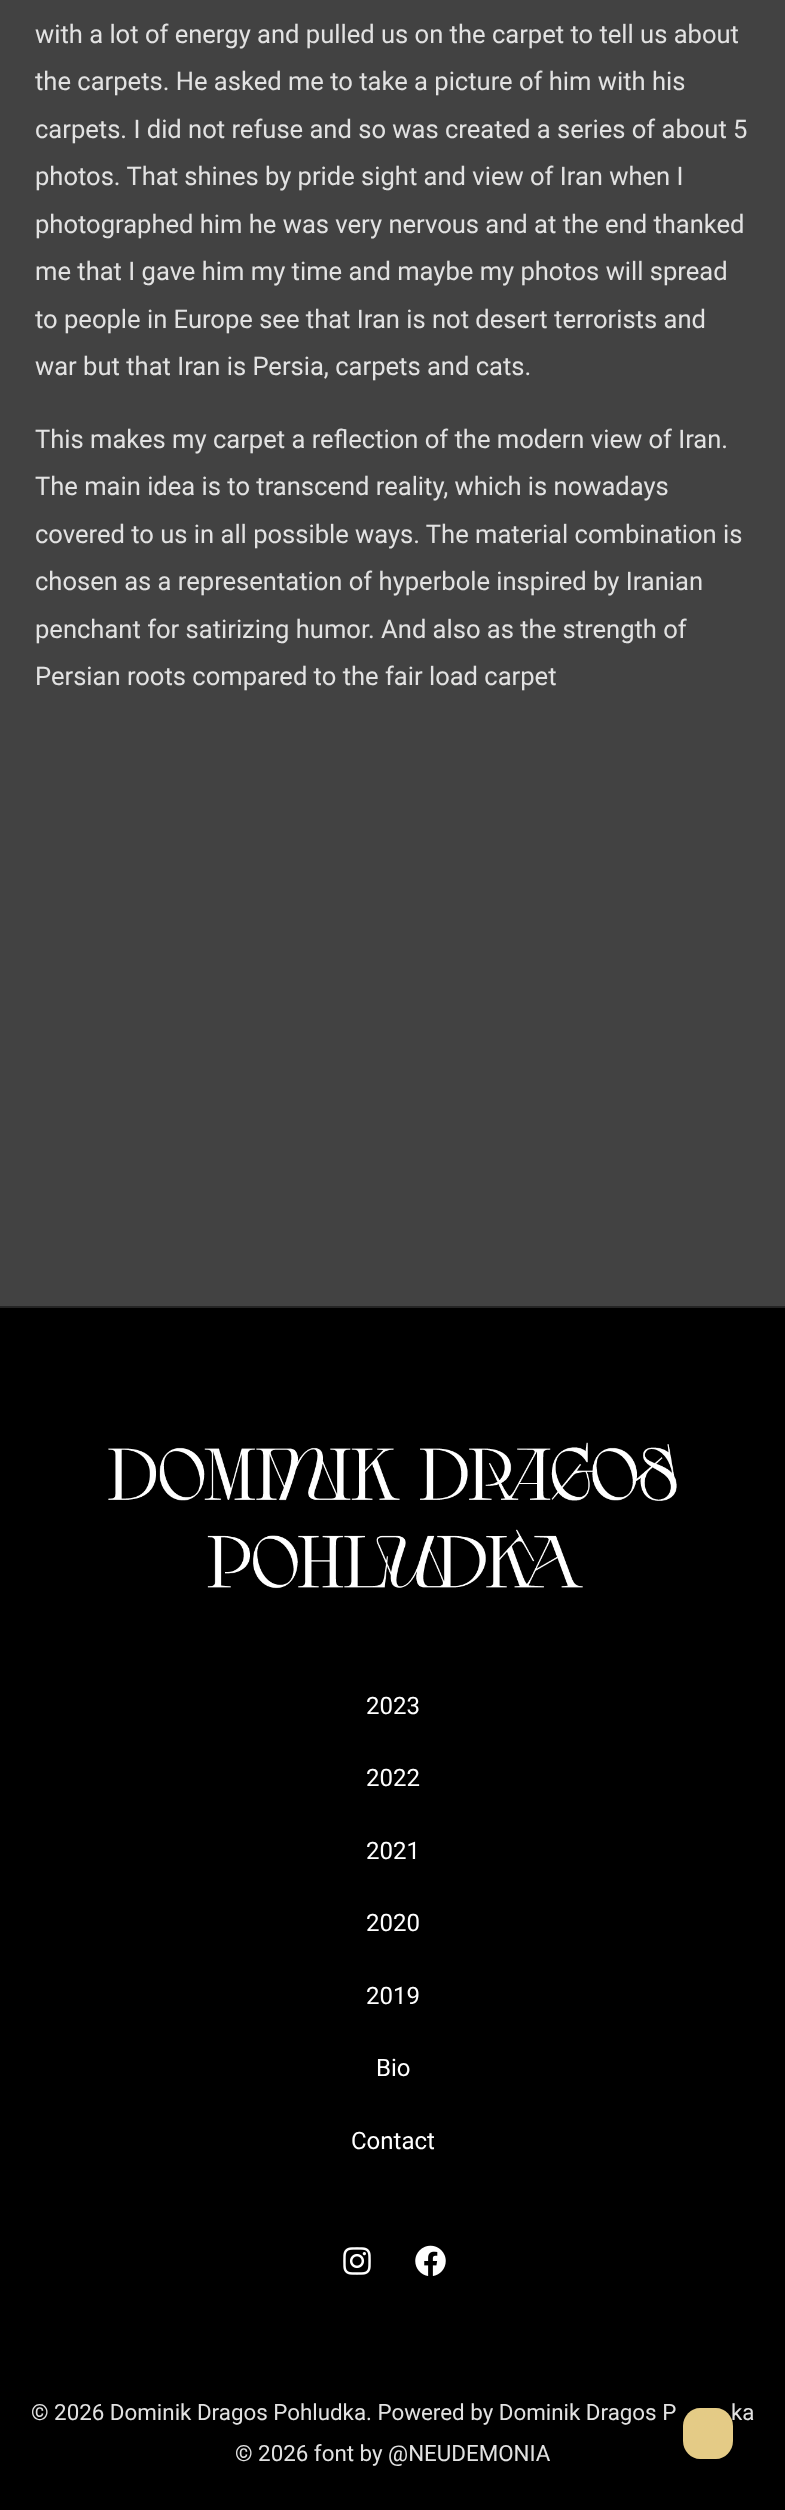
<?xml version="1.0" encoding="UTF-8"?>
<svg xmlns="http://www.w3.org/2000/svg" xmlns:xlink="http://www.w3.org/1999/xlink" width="785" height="2510">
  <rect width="100%" height="100%" fill="#424242" />
  <rect y="1308" width="785" height="1202" fill="#000000" />
  <rect y="1306" width="785" height="2" fill="#242424" />
  <image x="108" y="1442" width="569" height="147" xlink:href="image1.png" />
  <image x="343" y="2247" width="28" height="28" xlink:href="image2.png" />
  <image x="415" y="2245" width="31" height="31" xlink:href="image3.png" />
  <text x="35" y="43" style="font-family: Roboto; font-size: 25.55px; fill: #e2e2e2">with a lot of energy and pulled us on the carpet to tell us about</text>
  <text x="35" y="90" style="font-family: Roboto; font-size: 25.55px; fill: #e2e2e2">the carpets. He asked me to take a picture of him with his</text>
  <text x="35" y="138" style="font-family: Roboto; font-size: 25.55px; fill: #e2e2e2">carpets. I did not refuse and so was created a series of about 5</text>
  <text x="35" y="185" style="font-family: Roboto; font-size: 25.55px; fill: #e2e2e2">photos. That shines by pride sight and view of Iran when I</text>
  <text x="35" y="233" style="font-family: Roboto; font-size: 25.55px; fill: #e2e2e2">photographed him he was very nervous and at the end thanked</text>
  <text x="35" y="280" style="font-family: Roboto; font-size: 25.55px; fill: #e2e2e2">me that I gave him my time and maybe my photos will spread</text>
  <text x="35" y="328" style="font-family: Roboto; font-size: 25.55px; fill: #e2e2e2">to people in Europe see that Iran is not desert terrorists and</text>
  <text x="35" y="375" style="font-family: Roboto; font-size: 25.55px; fill: #e2e2e2">war but that Iran is Persia, carpets and cats.</text>
  <text x="35" y="448" style="font-family: Roboto; font-size: 25.55px; fill: #e2e2e2">This makes my carpet a reflection of the modern view of Iran.</text>
  <text x="35" y="495" style="font-family: Roboto; font-size: 25.55px; fill: #e2e2e2">The main idea is to transcend reality, which is nowadays</text>
  <text x="35" y="543" style="font-family: Roboto; font-size: 25.55px; fill: #e2e2e2">covered to us in all possible ways. The material combination is</text>
  <text x="35" y="590" style="font-family: Roboto; font-size: 25.55px; fill: #e2e2e2">chosen as a representation of hyperbole inspired by Iranian</text>
  <text x="35" y="638" style="font-family: Roboto; font-size: 25.55px; fill: #e2e2e2">penchant for satirizing humor. And also as the strength of</text>
  <text x="35" y="685" style="font-family: Roboto; font-size: 25.55px; fill: #e2e2e2">Persian roots compared to the fair load carpet</text>
  <text x="366" y="1714" style="font-family: Roboto; font-size: 24px; fill: #ffffff">2023</text>
  <text x="366" y="1786" style="font-family: Roboto; font-size: 24px; fill: #ffffff">2022</text>
  <text x="366" y="1859" style="font-family: Roboto; font-size: 24px; fill: #ffffff">2021</text>
  <text x="366" y="1931" style="font-family: Roboto; font-size: 24px; fill: #ffffff">2020</text>
  <text x="366" y="2004" style="font-family: Roboto; font-size: 24px; fill: #ffffff">2019</text>
  <text x="376" y="2076" style="font-family: Roboto; font-size: 24px; fill: #ffffff">Bio</text>
  <text x="351" y="2149" style="font-family: Roboto; font-size: 24px; fill: #ffffff">Contact</text>
  <text x="31" y="2420" style="font-family: Roboto; font-size: 22.35px; fill: #e2e2e2">© 2026 Dominik Dragos Pohludka. Powered by Dominik Dragos P</text>
  <text x="731" y="2420" style="font-family: Roboto; font-size: 22.35px; fill: #e2e2e2">ka</text>
  <text x="235" y="2461" style="font-family: Roboto; font-size: 22.35px; fill: #e2e2e2">© 2026 font by @NEUDEMONIA</text>
  <path d="M 716 2459 h -16 c -9 0 -17 -8 -17 -18 v -15 c 0 -10 8 -18 17 -18 h 16 c 9 0 17 8 17 18 v 15 c 0 10 -8 18 -17 18 z" fill="#e4cb86" />
</svg>
